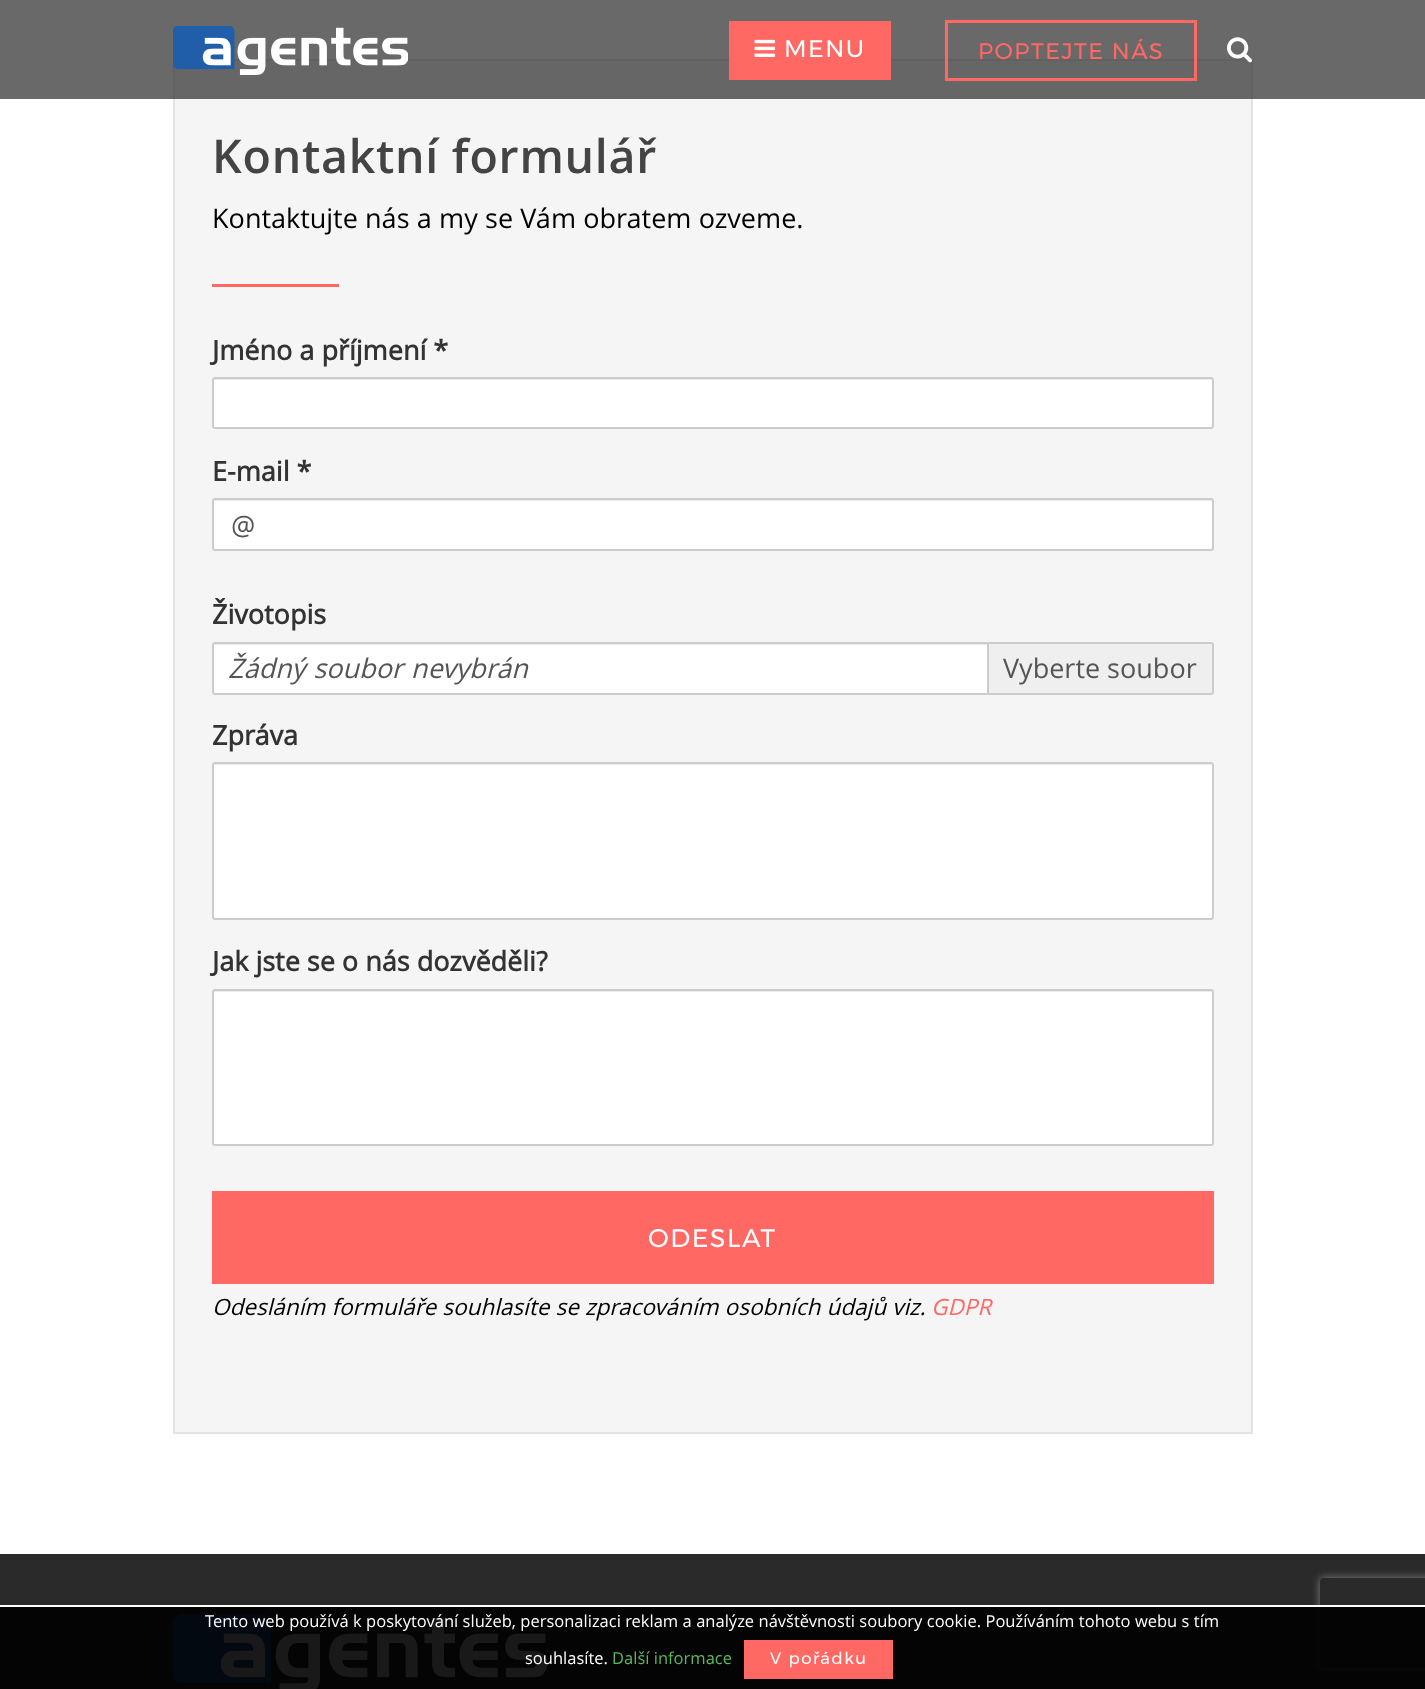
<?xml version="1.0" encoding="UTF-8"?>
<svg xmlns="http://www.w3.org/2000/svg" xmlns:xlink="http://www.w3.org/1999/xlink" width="1425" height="1689">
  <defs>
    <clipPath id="clip1"><path d="M 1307 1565 h 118 v 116 h -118 z m 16 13 h 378 c 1.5 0 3 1.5 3 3 v 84 c 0 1.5 -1.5 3 -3 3 h -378 c -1.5 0 -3 -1.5 -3 -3 v -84 c 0 -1.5 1.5 -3 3 -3 z" clip-rule="evenodd" /></clipPath>
  </defs>
  <rect width="100%" height="100%" fill="#ffffff" />
  <rect x="174" y="60" width="1078" height="1373" fill="#f5f5f5" stroke="#e3e3e3" stroke-width="2" />
  <rect width="1425" height="99" fill="#2a2a2a" fill-opacity="0.7" />
  <image x="173" y="26" width="235" height="49" xlink:href="image1.png" />
  <rect x="729" y="21" width="162" height="59" fill="#ff6863" />
  <image x="754" y="39" width="22" height="18" xlink:href="image2.png" />
  <rect x="946.5" y="21.5" width="249" height="58" fill="none" stroke="#ff6863" stroke-width="3" />
  <image x="1227" y="37" width="25" height="26" xlink:href="image3.png" />
  <rect x="212" y="284" width="127" height="3" fill="#ff6863" />
  <rect x="212" y="377" width="1002" height="52" rx="3" fill="#ffffff" />
  <path d="M 214 380 h 996 c 1 0 2 0 2 1 c 0 -1 0 -3 -2 -3 h -996 c -1 0 -1 2 -1 3 z" fill="#ececec" />
  <rect x="213" y="378" width="1000" height="50" rx="2" fill="none" stroke="#cccccc" stroke-width="2" />
  <rect x="212" y="498" width="1002" height="53" rx="3" fill="#ffffff" />
  <path d="M 214 501 h 996 l 2 1 c 0 -1 0 -2 -2 -2 h -996 l -1 1 v 1 z" fill="#ececec" />
  <rect x="213" y="499" width="1000" height="51" rx="2" fill="none" stroke="#cccccc" stroke-width="2" />
  <rect x="212" y="642" width="1002" height="53" rx="3" fill="#ffffff" />
  <path d="M 214 645 h 996 l 2 1 c 0 -1 0 -2 -2 -2 h -996 l -1 1 v 1 z" fill="#ececec" />
  <rect x="213" y="643" width="1000" height="51" rx="2" fill="none" stroke="#cccccc" stroke-width="2" />
  <rect x="989" y="644" width="223" height="49" fill="#efefef" />
  <rect x="987" y="644" width="2" height="49" fill="#cccccc" />
  <rect x="212" y="762" width="1002" height="158" rx="3" fill="#ffffff" />
  <path d="M 214 765 h 996 l 2 1 c 0 -1 0 -2 -2 -2 h -996 l -1 1 v 1 z" fill="#ececec" />
  <rect x="213" y="763" width="1000" height="156" rx="2" fill="none" stroke="#cccccc" stroke-width="2" />
  <rect x="212" y="989" width="1002" height="157" rx="3" fill="#ffffff" />
  <path d="M 214 992 h 996 c 1 0 2 0 2 1 c 0 -1 0 -3 -2 -3 h -996 c -1 0 -1 2 -1 3 z" fill="#ececec" />
  <rect x="213" y="990" width="1000" height="155" rx="2" fill="none" stroke="#cccccc" stroke-width="2" />
  <rect x="212" y="1191" width="1002" height="93" fill="#ff6863" />
  <rect y="1554" width="1425" height="135" fill="#2a2a2a" />
  <image x="173" y="1614" width="375" height="75" xlink:href="image4.png" />
  <g clip-path="url(#clip1)">
    <rect x="1320" y="1578" width="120" height="90" rx="3" fill="#808080" filter="blur(4px)" />
  </g>
  <rect y="1607" width="1425" height="82" fill="#000000" fill-opacity="0.9" />
  <rect y="1605" width="1425" height="2" fill="#ffffff" />
  <rect x="744" y="1640" width="149" height="39" fill="#ff6863" />
  <text x="784" y="57" style="font-family: Montserrat; font-size: 24px; letter-spacing: 1.5px; fill: #ffffff">MENU</text>
  <text x="978" y="59" style="font-family: Montserrat; font-size: 22.5px; letter-spacing: 1.5px; fill: #ff6863">POPTEJTE NÁS</text>
  <text x="212" y="173" style="font-family: Open Sans; font-size: 46.5px; font-weight: 600; letter-spacing: 0.75px; fill: #444444">Kontaktní formulář</text>
  <text x="212" y="228" word-spacing="0.25" style="font-family: Open Sans; font-size: 27px; fill: #000000">Kontaktujte nás a my se Vám obratem ozveme.</text>
  <text x="212" y="360" style="font-family: Open Sans; font-size: 27px; font-weight: bold; fill: #333333">Jméno a příjmení *</text>
  <text x="212" y="481" style="font-family: Open Sans; font-size: 27px; font-weight: bold; fill: #333333">E-mail *</text>
  <text x="231" y="535" style="font-family: Open Sans; font-size: 27px; fill: #555555">@</text>
  <text x="212" y="624" style="font-family: Open Sans; font-size: 27px; font-weight: bold; fill: #333333">Životopis</text>
  <text x="228" y="678" word-spacing="1" style="font-family: Open Sans; font-size: 27px; font-style: italic; fill: #555555">Žádný soubor nevybrán</text>
  <text x="1003" y="678" style="font-family: Open Sans; font-size: 27px; fill: #555555">Vyberte soubor</text>
  <text x="212" y="745" style="font-family: Open Sans; font-size: 27px; font-weight: bold; fill: #333333">Zpráva</text>
  <text x="212" y="971" style="font-family: Open Sans; font-size: 27px; font-weight: bold; fill: #333333">Jak jste se o nás dozvěděli?</text>
  <text x="648" y="1247" style="font-family: Montserrat; font-size: 25.5px; letter-spacing: 1.5px; fill: #ffffff">ODESLAT</text>
  <text x="212" y="1315" word-spacing="0.25" style="font-family: Open Sans; font-size: 22.5px; font-style: italic; fill: #000000">Odesláním formuláře souhlasíte se zpracováním osobních údajů viz.</text>
  <text x="931" y="1315" style="font-family: Open Sans; font-size: 22.5px; font-style: italic; fill: #ff6863">GDPR</text>
  <text x="205" y="1627" word-spacing="0.1" style="font-family: Open Sans; font-size: 16.5px; fill: #ffffff">Tento web používá k poskytování služeb, personalizaci reklam a analýze návštěvnosti soubory cookie. Používáním tohoto webu s tím</text>
  <text x="525" y="1664" style="font-family: Open Sans; font-size: 16.5px; fill: #ffffff">souhlasíte.</text>
  <text x="612" y="1664" style="font-family: Open Sans; font-size: 16.5px; fill: #5cb85c">Další informace</text>
  <text x="770" y="1664" style="font-family: Montserrat; font-size: 16.5px; letter-spacing: 1.5px; fill: #ffffff">V pořádku</text>
</svg>
